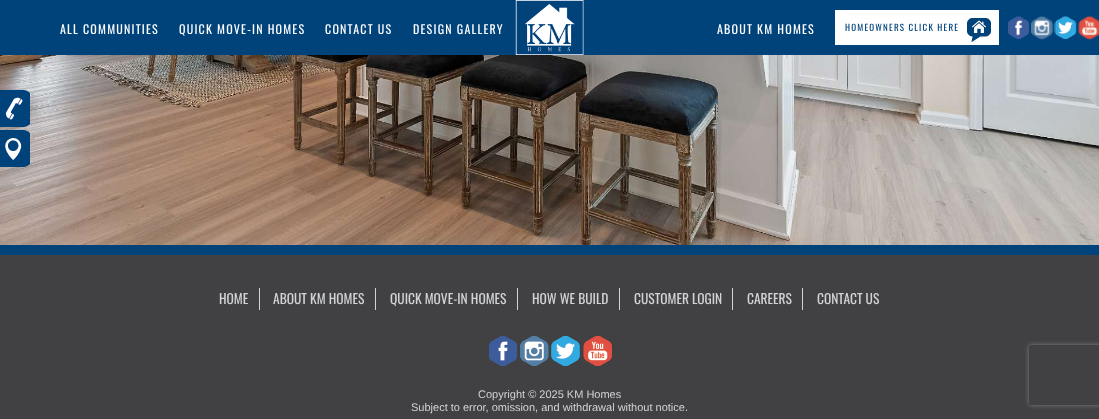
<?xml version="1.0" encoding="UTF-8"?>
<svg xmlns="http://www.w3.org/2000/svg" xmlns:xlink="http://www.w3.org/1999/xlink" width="1099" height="419">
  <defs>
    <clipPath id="clip1"><path d="M 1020 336 h 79 v 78 h -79 z m 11 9 h 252 c 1 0 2 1 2 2 v 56 c 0 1 -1 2 -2 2 h -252 c -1 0 -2 -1 -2 -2 v -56 c 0 -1 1 -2 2 -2 z" clip-rule="evenodd" /></clipPath>
  </defs>
  <rect width="100%" height="100%" fill="#414042" />
  <rect width="1099" height="55" fill="#00427a" />
  <image x="515" y="0" width="69" height="55" xlink:href="image1.png" />
  <rect x="835" y="10" width="164" height="35" fill="#ffffff" />
  <image x="967" y="18" width="24" height="24" xlink:href="image2.png" />
  <image x="1008" y="16" width="22" height="23" xlink:href="image3.png" />
  <image x="1031" y="16" width="26" height="24" xlink:href="image4.png" />
  <image x="1056" y="16" width="21" height="23" xlink:href="image5.png" />
  <image x="1078" y="16" width="21" height="24" xlink:href="image6.png" />
  <image x="0" y="55" width="1099" height="190" xlink:href="image7.png" />
  <rect y="245" width="1099" height="10" fill="#00427a" />
  <image x="0" y="90" width="30" height="37" xlink:href="image8.png" />
  <image x="0" y="130" width="30" height="37" xlink:href="image9.png" />
  <rect x="259" y="288" width="1" height="22" fill="#d1d3d4" />
  <rect x="375" y="288" width="1" height="22" fill="#d1d3d4" />
  <rect x="517" y="288" width="1" height="22" fill="#d1d3d4" />
  <rect x="619" y="288" width="1" height="22" fill="#d1d3d4" />
  <rect x="732" y="288" width="1" height="22" fill="#d1d3d4" />
  <rect x="802" y="288" width="1" height="22" fill="#d1d3d4" />
  <image x="489" y="336" width="29" height="30" xlink:href="image10.png" />
  <image x="520" y="336" width="33" height="30" xlink:href="image11.png" />
  <image x="553" y="336" width="27" height="30" xlink:href="image12.png" />
  <image x="583" y="336" width="29" height="30" xlink:href="image13.png" />
  <g clip-path="url(#clip1)">
    <rect x="1029" y="345" width="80" height="60" rx="2" fill="#808080" filter="blur(2.5px)" />
  </g>
  <text x="60" y="34" style="font-family: Oswald; font-size: 12px; letter-spacing: 1.2px; fill: #ffffff">ALL COMMUNITIES</text>
  <text x="179" y="34" style="font-family: Oswald; font-size: 12px; letter-spacing: 1.2px; fill: #ffffff">QUICK MOVE-IN HOMES</text>
  <text x="325" y="34" style="font-family: Oswald; font-size: 12px; letter-spacing: 1.2px; fill: #ffffff">CONTACT US</text>
  <text x="413" y="34" style="font-family: Oswald; font-size: 12px; letter-spacing: 1.2px; fill: #ffffff">DESIGN GALLERY</text>
  <text x="717" y="34" style="font-family: Oswald; font-size: 12px; letter-spacing: 1.2px; fill: #ffffff">ABOUT KM HOMES</text>
  <text x="845" y="31" style="font-family: Oswald; font-size: 9px; letter-spacing: 1.2px; fill: #00427a">HOMEOWNERS CLICK HERE</text>
  <text x="219" y="304" style="font-family: Oswald; font-size: 13.5px; fill: #d1d3d4">HOME</text>
  <text x="273" y="304" style="font-family: Oswald; font-size: 13.5px; fill: #d1d3d4">ABOUT KM HOMES</text>
  <text x="390" y="304" style="font-family: Oswald; font-size: 13.5px; fill: #d1d3d4">QUICK MOVE-IN HOMES</text>
  <text x="532" y="304" style="font-family: Oswald; font-size: 13.5px; fill: #d1d3d4">HOW WE BUILD</text>
  <text x="634" y="304" style="font-family: Oswald; font-size: 13.5px; fill: #d1d3d4">CUSTOMER LOGIN</text>
  <text x="747" y="304" style="font-family: Oswald; font-size: 13.5px; fill: #d1d3d4">CAREERS</text>
  <text x="817" y="304" style="font-family: Oswald; font-size: 13.5px; fill: #d1d3d4">CONTACT US</text>
  <text x="478" y="398" style="font-family: Liberation Sans; font-size: 11px; fill: #d1d3d4">Copyright © 2025 KM Homes</text>
  <text x="411" y="411" style="font-family: Liberation Sans; font-size: 11px; fill: #d1d3d4">Subject to error, omission, and withdrawal without notice.</text>
</svg>
